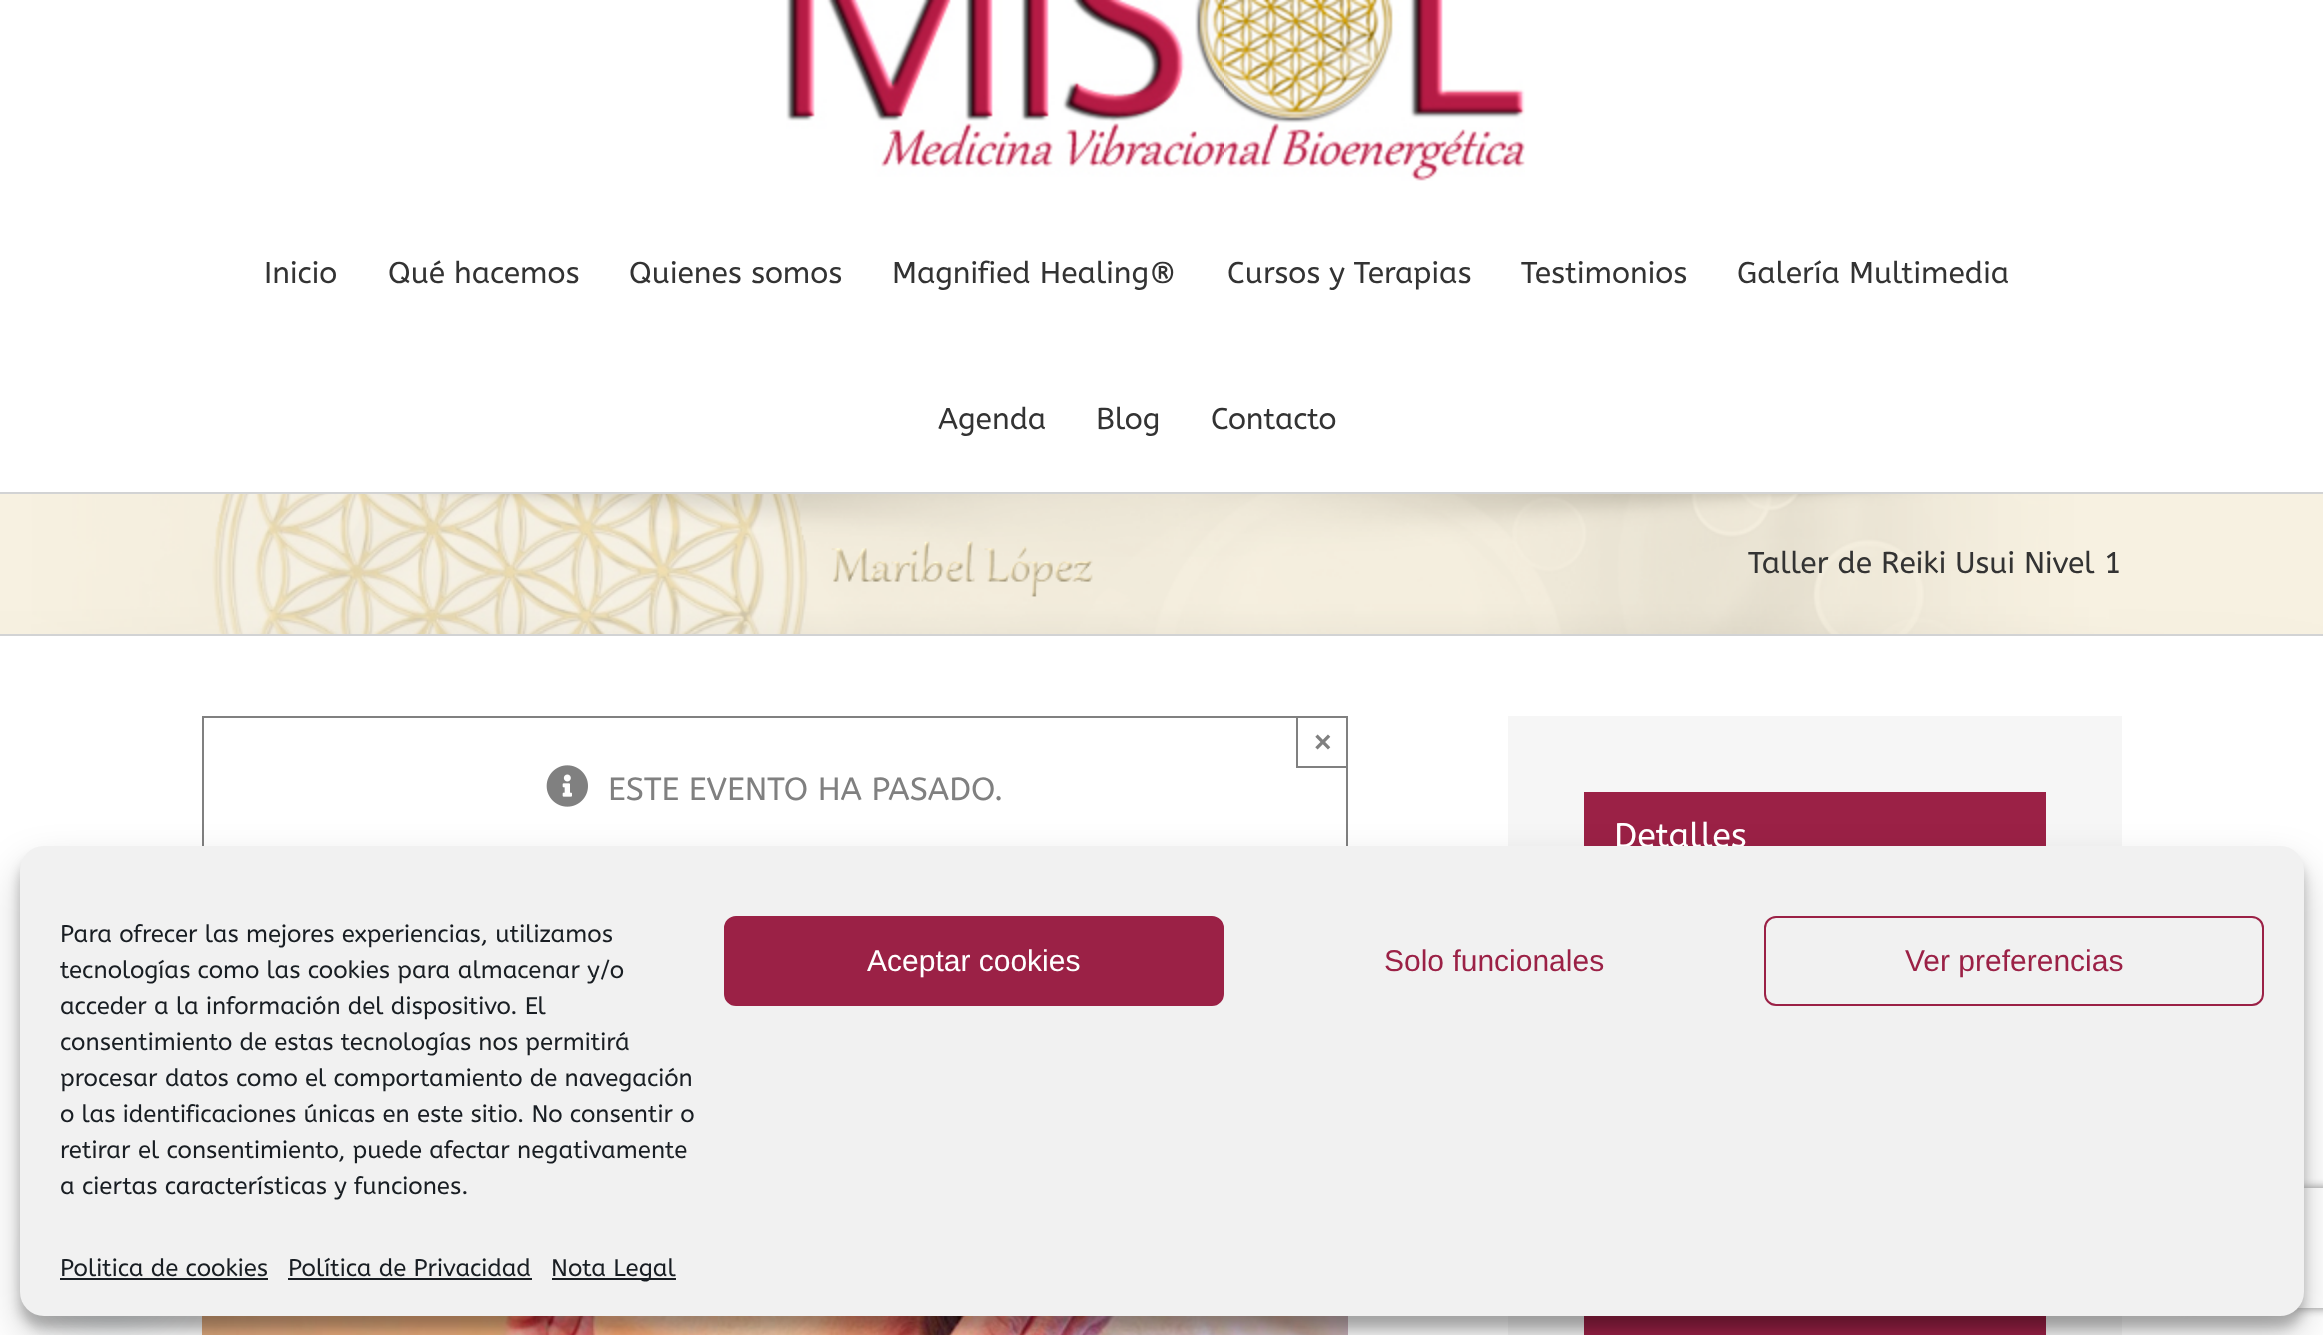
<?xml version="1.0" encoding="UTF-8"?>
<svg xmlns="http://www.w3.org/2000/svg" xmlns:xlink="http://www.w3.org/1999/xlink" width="2323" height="1335">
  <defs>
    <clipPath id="clip1"><path d="M 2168 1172 h 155 v 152 h -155 z m 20 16 h 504 c 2 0 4 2 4 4 v 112 c 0 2 -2 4 -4 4 h -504 c -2 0 -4 -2 -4 -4 v -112 c 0 -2 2 -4 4 -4 z" clip-rule="evenodd" /></clipPath>
  </defs>
  <rect width="100%" height="100%" fill="#ffffff" />
  <image x="786" y="0" width="739" height="181" xlink:href="image1.png" />
  <image x="0" y="494" width="2323" height="140" xlink:href="image2.png" />
  <rect y="492" width="2323" height="2" fill="#d2d3d4" />
  <rect y="634" width="2323" height="2" fill="#d2d3d4" />
  <rect x="203" y="717" width="1144" height="144" fill="none" stroke="#808080" stroke-width="2" />
  <rect x="1296" y="766" width="52" height="2" fill="#808080" />
  <rect x="1296" y="716" width="2" height="52" fill="#808080" />
  <image x="546" y="765" width="42" height="42" xlink:href="image3.png" />
  <image x="202" y="1316" width="1146" height="19" xlink:href="image4.png" />
  <rect x="1508" y="716" width="614" height="619" fill="#f6f6f6" />
  <rect x="1584" y="792" width="462" height="54" fill="#9b2146" />
  <rect x="1584" y="1316" width="462" height="19" fill="#9b2146" />
  <rect x="20" y="858" width="2284" height="470" rx="24" fill="#000000" fill-opacity="0.23" filter="blur(6px)" />
  <rect x="20" y="866" width="2284" height="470" rx="24" fill="#000000" fill-opacity="0.19" filter="blur(20px)" />
  <rect x="58" y="1210" width="108" height="108" rx="54" fill="#49687e" fill-opacity="0.16" filter="blur(24px)" />
  <g clip-path="url(#clip1)">
    <rect x="2184" y="1188" width="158" height="120" rx="4" fill="#808080" filter="blur(5px)" />
  </g>
  <text x="264" y="283" style="font-family: ABeeZee; font-size: 30px; fill: #333333">Inicio</text>
  <text x="388" y="283" style="font-family: ABeeZee; font-size: 30px; fill: #333333">Qué hacemos</text>
  <text x="629" y="283" style="font-family: ABeeZee; font-size: 30px; fill: #333333">Quienes somos</text>
  <text x="892" y="283" style="font-family: ABeeZee; font-size: 30px; fill: #333333">Magnified Healing®</text>
  <text x="1227" y="283" style="font-family: ABeeZee; font-size: 30px; fill: #333333">Cursos y Terapias</text>
  <text x="1521" y="283" style="font-family: ABeeZee; font-size: 30px; fill: #333333">Testimonios</text>
  <text x="1737" y="283" style="font-family: ABeeZee; font-size: 30px; fill: #333333">Galería Multimedia</text>
  <text x="938" y="429" style="font-family: ABeeZee; font-size: 30px; fill: #333333">Agenda</text>
  <text x="1096" y="429" style="font-family: ABeeZee; font-size: 30px; fill: #333333">Blog</text>
  <text x="1211" y="429" style="font-family: ABeeZee; font-size: 30px; fill: #333333">Contacto</text>
  <text x="1748" y="573" style="font-family: ABeeZee; font-size: 30px; fill: #333333">Taller de Reiki Usui Nivel 1</text>
  <text x="1314" y="752" style="font-family: Liberation Sans; font-size: 30px; font-weight: bold; fill: #808080">×</text>
  <text x="608" y="800" style="font-family: ABeeZee; font-size: 32px; fill: #808080">ESTE EVENTO HA PASADO.</text>
  <text x="1614" y="847" style="font-family: ABeeZee; font-size: 34px; fill: #ffffff">Detalles</text>
  <rect x="20" y="846" width="2284" height="470" rx="24" fill="#f1f1f1" />
  <text x="60" y="942" style="font-family: ABeeZee; font-size: 24px; fill: #191e23">Para ofrecer las mejores experiencias, utilizamos</text>
  <text x="60" y="978" style="font-family: ABeeZee; font-size: 24px; fill: #191e23">tecnologías como las cookies para almacenar y/o</text>
  <text x="60" y="1014" style="font-family: ABeeZee; font-size: 24px; fill: #191e23">acceder a la información del dispositivo. El</text>
  <text x="60" y="1050" style="font-family: ABeeZee; font-size: 24px; fill: #191e23">consentimiento de estas tecnologías nos permitirá</text>
  <text x="60" y="1086" style="font-family: ABeeZee; font-size: 24px; fill: #191e23">procesar datos como el comportamiento de navegación</text>
  <text x="60" y="1122" style="font-family: ABeeZee; font-size: 24px; fill: #191e23">o las identificaciones únicas en este sitio. No consentir o</text>
  <text x="60" y="1158" style="font-family: ABeeZee; font-size: 24px; fill: #191e23">retirar el consentimiento, puede afectar negativamente</text>
  <text x="60" y="1194" style="font-family: ABeeZee; font-size: 24px; fill: #191e23">a ciertas características y funciones.</text>
  <rect x="725" y="917" width="498" height="88" rx="11" fill="#9b2146" stroke="#9b2146" stroke-width="2" />
  <text x="867" y="971" style="font-family: Liberation Sans; font-size: 30px; fill: #ffffff">Aceptar cookies</text>
  <text x="1384" y="971" style="font-family: Liberation Sans; font-size: 30px; fill: #9b2146">Solo funcionales</text>
  <rect x="1765" y="917" width="498" height="88" rx="11" fill="none" stroke="#9b2146" stroke-width="2" />
  <text x="1905" y="971" style="font-family: Liberation Sans; font-size: 30px; fill: #9b2146">Ver preferencias</text>
  <text x="60" y="1276" style="font-family: ABeeZee; font-size: 24px; fill: #191e23">Politica de cookies</text>
  <rect x="60" y="1278" width="208" height="2" fill="#191e23" />
  <text x="288" y="1276" style="font-family: ABeeZee; font-size: 24px; fill: #191e23">Política de Privacidad</text>
  <rect x="288" y="1278" width="244" height="2" fill="#191e23" />
  <rect x="552" y="1278" width="124" height="2" fill="#191e23" />
  <text x="551" y="1276" style="font-family: ABeeZee; font-size: 24px; fill: #191e23">Nota Legal</text>
</svg>
